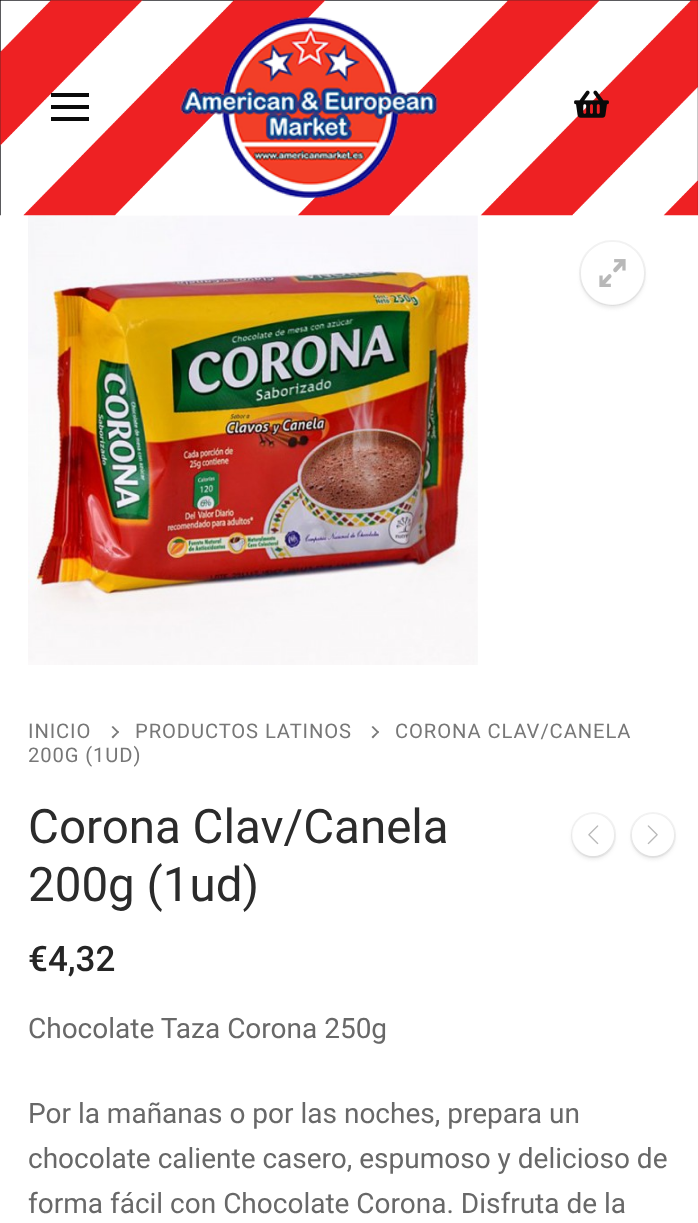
<?xml version="1.0" encoding="UTF-8"?>
<svg xmlns="http://www.w3.org/2000/svg" xmlns:xlink="http://www.w3.org/1999/xlink" width="698" height="1223">
  <defs>
    <clipPath id="clip1"><path d="M 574 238 h 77 v 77 h -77 z m 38.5 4 c 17.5 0 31.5 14 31.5 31.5 c 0 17.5 -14 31.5 -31.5 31.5 c -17.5 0 -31.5 -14 -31.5 -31.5 c 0 -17.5 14 -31.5 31.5 -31.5 z" clip-rule="evenodd" /></clipPath>
    <clipPath id="clip2"><path d="M 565 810 h 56 v 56 h -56 z m 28 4 c 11.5 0 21 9.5 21 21 c 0 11.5 -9.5 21 -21 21 c -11.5 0 -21 -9.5 -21 -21 c 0 -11.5 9.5 -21 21 -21 z" clip-rule="evenodd" /></clipPath>
    <clipPath id="clip3"><path d="M 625 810 h 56 v 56 h -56 z m 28 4 c 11.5 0 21 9.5 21 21 c 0 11.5 -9.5 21 -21 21 c -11.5 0 -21 -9.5 -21 -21 c 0 -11.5 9.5 -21 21 -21 z" clip-rule="evenodd" /></clipPath>
  </defs>
  <rect width="100%" height="100%" fill="#ffffff" />
  <image x="28" y="215" width="450" height="450" xlink:href="image4.png" />
  <image x="0" y="0" width="698" height="216" xlink:href="image1.png" />
  <rect x="51" y="105" width="38" height="4" fill="#0a0a0a" />
  <rect x="51" y="93" width="38" height="4" fill="#0a0a0a" />
  <rect x="51" y="117" width="38" height="4" fill="#0a0a0a" />
  <image x="180" y="17" width="258" height="181" xlink:href="image2.png" />
  <image x="574" y="90" width="35" height="28" xlink:href="image3.png" />
  <rect x="580" y="241" width="65" height="64" rx="32" fill="none" stroke="#f3f3f3" stroke-width="2" />
  <g clip-path="url(#clip1)">
    <rect x="581" y="245" width="63" height="63" rx="31.5" fill="#666666" fill-opacity="0.16" filter="blur(2px)" />
  </g>
  <circle cx="612.5" cy="273.5" r="31.5" fill="#ffffff" fill-opacity="0.5" />
  <image x="599" y="259" width="27" height="28" xlink:href="image5.png" />
  <path d="M 119 732 l -6 6.5 l -1.5 -1.5 l 6.5 -6 z" fill="#777777" />
  <path d="M 119 732 l -1 1.5 l -6.5 -6.5 l 1.5 -1 z" fill="#777777" />
  <path d="M 379 732 l -6 6.5 l -1.5 -1.5 l 6.5 -6 z" fill="#777777" />
  <path d="M 379 732 l -1 1.5 l -6.5 -6.5 l 1.5 -1 z" fill="#777777" />
  <rect x="572" y="813" width="43" height="44" rx="21.5" fill="none" stroke="#f3f3f3" stroke-width="2" />
  <g clip-path="url(#clip2)">
    <rect x="572" y="817" width="42" height="42" rx="21" fill="#666666" fill-opacity="0.16" filter="blur(2px)" />
  </g>
  <circle cx="593" cy="835" r="21" fill="#ffffff" fill-opacity="0.5" />
  <image x="588" y="825" width="11" height="20" xlink:href="image6.png" />
  <circle cx="653" cy="835" r="22" fill="none" stroke="#f3f3f3" stroke-width="2" />
  <g clip-path="url(#clip3)">
    <rect x="632" y="817" width="42" height="42" rx="21" fill="#666666" fill-opacity="0.16" filter="blur(2px)" />
  </g>
  <circle cx="653" cy="835" r="21" fill="#ffffff" fill-opacity="0.5" />
  <image x="647" y="825" width="11" height="20" xlink:href="image7.png" />
  <text x="28" y="738" style="font-family: Roboto; font-size: 20.2px; letter-spacing: 0.9px; fill: #777777">INICIO</text>
  <text x="135" y="738" style="font-family: Roboto; font-size: 20.2px; letter-spacing: 0.9px; fill: #777777">PRODUCTOS LATINOS</text>
  <text x="395" y="738" style="font-family: Roboto; font-size: 20.2px; letter-spacing: 0.9px; fill: #777777">CORONA CLAV/CANELA</text>
  <text x="28" y="762" style="font-family: Roboto; font-size: 20.2px; letter-spacing: 0.9px; fill: #777777">200G (1UD)</text>
  <text x="28" y="843" style="font-family: Roboto; font-size: 47.5px; fill: #2b2b2b">Corona Clav/Canela</text>
  <text x="28" y="901" style="font-family: Roboto; font-size: 47.5px; fill: #2b2b2b">200g (1ud)</text>
  <text x="28" y="971" style="font-family: Roboto; font-size: 35px; font-weight: 500; fill: #252525">€4,32</text>
  <text x="28" y="1038" style="font-family: Roboto; font-size: 28px; fill: #686868">Chocolate Taza Corona 250g</text>
  <text x="28" y="1123" style="font-family: Roboto; font-size: 28px; fill: #686868">Por la mañanas o por las noches, prepara un</text>
  <text x="28" y="1168" style="font-family: Roboto; font-size: 28px; fill: #686868">chocolate caliente casero, espumoso y delicioso de</text>
  <text x="28" y="1213" style="font-family: Roboto; font-size: 28px; fill: #686868">forma fácil con Chocolate Corona. Disfruta de la</text>
</svg>
